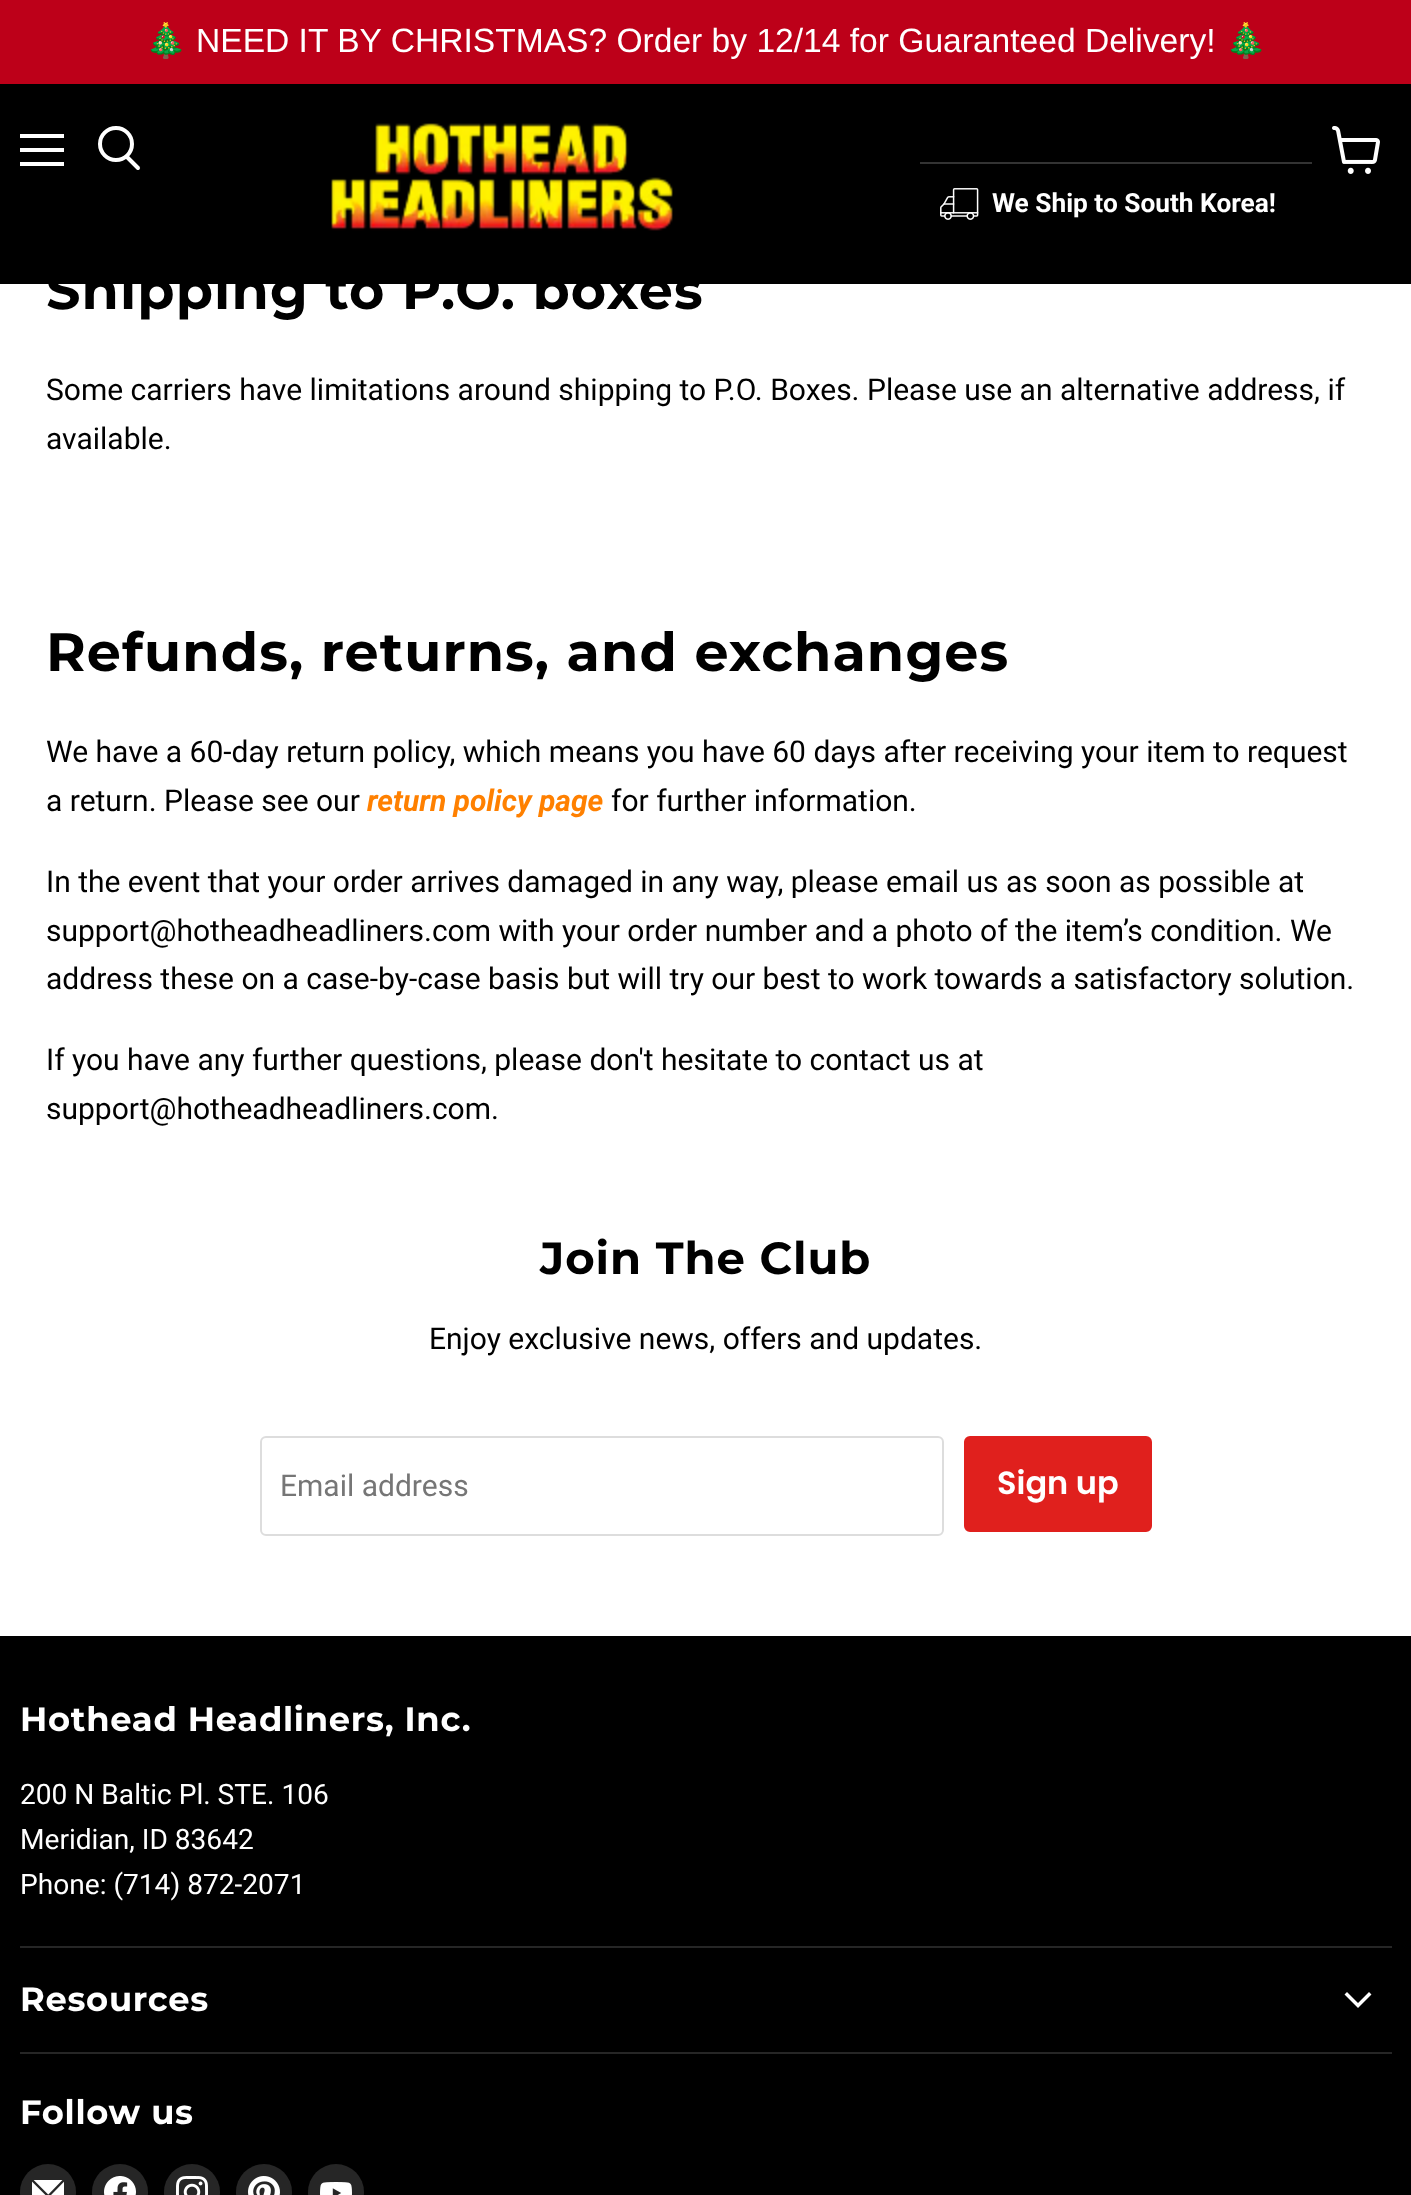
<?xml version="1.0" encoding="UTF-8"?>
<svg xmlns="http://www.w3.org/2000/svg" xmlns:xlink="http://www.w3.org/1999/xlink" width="1411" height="2195">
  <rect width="100%" height="100%" fill="#ffffff" />
  <rect width="1411" height="84" fill="#bd0019" />
  <rect y="84" width="1411" height="200" fill="#000000" />
  <rect x="20" y="134" width="44" height="4" fill="#ffffff" />
  <rect x="20" y="148" width="44" height="4" fill="#ffffff" />
  <rect x="20" y="162" width="44" height="4" fill="#ffffff" />
  <path d="M 138 168 l -11 -11" fill="none" stroke="#ffffff" stroke-width="4" stroke-linecap="round" />
  <circle cx="116" cy="144" r="16" fill="none" stroke="#ffffff" stroke-width="4" />
  <image x="1332" y="126" width="48" height="48" xlink:href="image1.png" />
  <image x="331" y="123" width="342" height="108" xlink:href="image2.png" />
  <rect x="920" y="162" width="392" height="2" fill="#333333" />
  <image x="940" y="188" width="39" height="32" xlink:href="image3.png" />
  <rect x="261" y="1437" width="682" height="98" rx="5" fill="none" stroke="#dddddd" stroke-width="2" />
  <rect x="965" y="1437" width="186" height="94" rx="5" fill="#e0201d" stroke="#e0201d" stroke-width="2" />
  <rect y="1636" width="1411" height="559" fill="#000000" />
  <rect x="20" y="1946" width="1372" height="2" fill="#262626" />
  <rect x="20" y="2052" width="1372" height="2" fill="#262626" />
  <path d="M 1358 2005.5 l 11 -11 m -11 11 l -11 -11" fill="none" stroke="#ffffff" stroke-width="3.5" stroke-linecap="square" />
  <circle cx="48" cy="2192" r="28" fill="#262626" />
  <image x="32" y="2180" width="32" height="15" xlink:href="image4.png" />
  <circle cx="120" cy="2192" r="28" fill="#262626" />
  <image x="104" y="2176" width="32" height="19" xlink:href="image5.png" />
  <circle cx="192" cy="2192" r="28" fill="#262626" />
  <image x="176" y="2176" width="32" height="19" xlink:href="image6.png" />
  <circle cx="264" cy="2192" r="28" fill="#262626" />
  <image x="248" y="2176" width="32" height="19" xlink:href="image7.png" />
  <circle cx="336" cy="2192" r="28" fill="#262626" />
  <image x="320" y="2182" width="32" height="13" xlink:href="image8.png" />
  <text x="145" y="52" style="font-family: Noto Color Emoji; font-size: 33.6px; fill: #ffffff">🎄</text>
  <text x="196" y="52" style="font-family: Liberation Sans; font-size: 33.6px; fill: #ffffff">NEED IT BY CHRISTMAS? Order by 12/14 for Guaranteed Delivery!</text>
  <text x="1225" y="52" style="font-family: Noto Color Emoji; font-size: 33.6px; fill: #ffffff">🎄</text>
  <text x="992" y="212" style="font-family: Roboto; font-size: 26.25px; font-weight: bold; fill: #ffffff">We Ship to South Korea!</text>
  <text x="46" y="309" style="font-family: Montserrat; font-size: 54px; font-weight: bold; letter-spacing: 1.1px; fill: #000000">Shipping to P.O. boxes</text>
  <text x="46" y="400" style="font-family: Roboto; font-size: 30px; fill: #000000">Some carriers have limitations around shipping to P.O. Boxes. Please use an alternative address, if</text>
  <text x="46" y="449" style="font-family: Roboto; font-size: 30px; fill: #000000">available.</text>
  <text x="46" y="671" style="font-family: Montserrat; font-size: 54px; font-weight: bold; letter-spacing: 1.1px; fill: #000000">Refunds, returns, and exchanges</text>
  <text x="46" y="762" style="font-family: Roboto; font-size: 30px; fill: #000000">We have a 60-day return policy, which means you have 60 days after receiving your item to request</text>
  <text x="46" y="811" style="font-family: Roboto; font-size: 30px; fill: #000000">a return. Please see our</text>
  <text x="367" y="811" style="font-family: Roboto; font-size: 30px; font-weight: bold; font-style: italic; fill: #ff8000">return policy page</text>
  <text x="611" y="811" style="font-family: Roboto; font-size: 30px; fill: #000000">for further information.</text>
  <text x="46" y="892" style="font-family: Roboto; font-size: 30px; fill: #000000">In the event that your order arrives damaged in any way, please email us as soon as possible at</text>
  <text x="46" y="941" style="font-family: Roboto; font-size: 30px; fill: #000000">support@hotheadheadliners.com with your order number and a photo of the item’s condition. We</text>
  <text x="46" y="989" style="font-family: Roboto; font-size: 30px; fill: #000000">address these on a case-by-case basis but will try our best to work towards a satisfactory solution.</text>
  <text x="46" y="1070" style="font-family: Roboto; font-size: 30px; fill: #000000">If you have any further questions, please don't hesitate to contact us at</text>
  <text x="46" y="1119" style="font-family: Roboto; font-size: 30px; fill: #000000">support@hotheadheadliners.com.</text>
  <text x="540" y="1274" style="font-family: Montserrat; font-size: 45px; font-weight: bold; letter-spacing: 0.9px; fill: #000000">Join The Club</text>
  <text x="429" y="1349" style="font-family: Roboto; font-size: 30px; fill: #000000">Enjoy exclusive news, offers and updates.</text>
  <text x="280" y="1496" style="font-family: Roboto; font-size: 30px; fill: #767676">Email address</text>
  <text x="997" y="1494" style="font-family: Poppins; font-size: 32px; font-weight: 600; fill: #ffffff">Sign up</text>
  <text x="20" y="1731" style="font-family: Montserrat; font-size: 33.75px; font-weight: bold; letter-spacing: 0.7px; fill: #ffffff">Hothead Headliners, Inc.</text>
  <text x="20" y="1804" style="font-family: Roboto; font-size: 28.1px; fill: #ffffff">200 N Baltic Pl. STE. 106</text>
  <text x="20" y="1849" style="font-family: Roboto; font-size: 28.1px; fill: #ffffff">Meridian, ID 83642</text>
  <text x="20" y="1894" style="font-family: Roboto; font-size: 28.1px; fill: #ffffff">Phone: (714) 872-2071</text>
  <text x="20" y="2011" style="font-family: Montserrat; font-size: 33.75px; font-weight: bold; letter-spacing: 0.7px; fill: #ffffff">Resources</text>
  <text x="20" y="2124" style="font-family: Montserrat; font-size: 33.75px; font-weight: bold; letter-spacing: 0.7px; fill: #ffffff">Follow us</text>
</svg>
